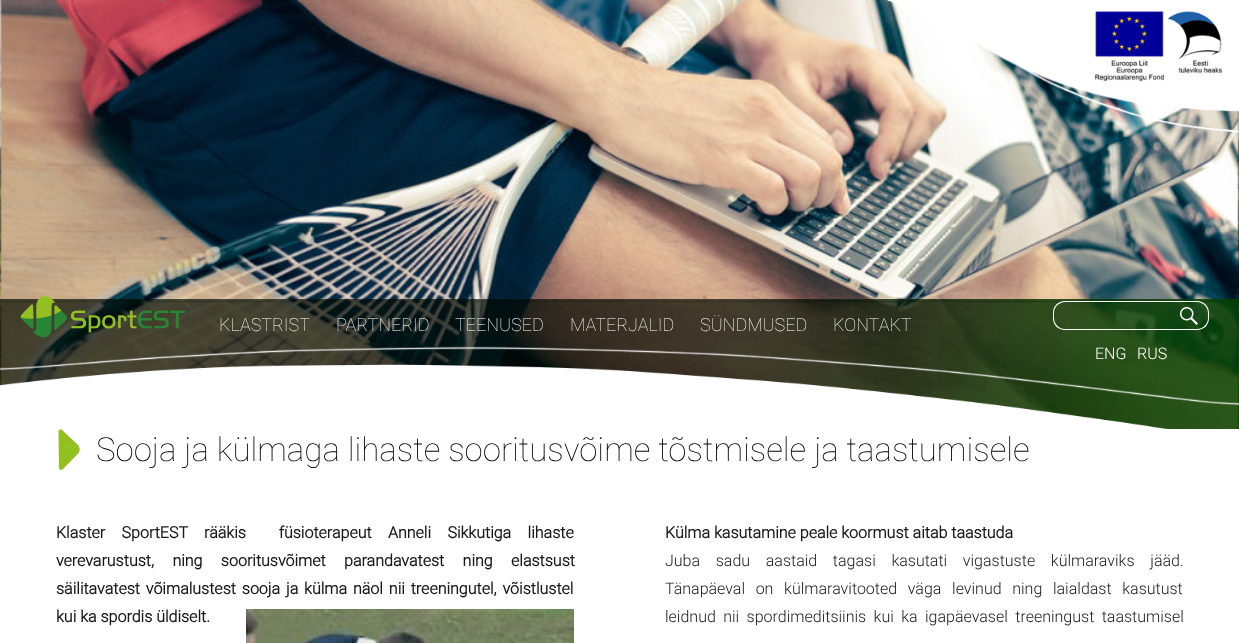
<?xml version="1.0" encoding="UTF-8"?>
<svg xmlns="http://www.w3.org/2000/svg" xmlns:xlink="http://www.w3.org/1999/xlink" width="1239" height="643">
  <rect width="100%" height="100%" fill="#ffffff" />
  <image x="0" y="0" width="1239" height="429" xlink:href="image1.png" />
  <image x="0" y="0" width="1239" height="429" xlink:href="image2.png" />
  <image x="1094" y="11" width="129" height="71" xlink:href="image3.png" />
  <image x="20" y="296" width="165" height="42" xlink:href="image4.png" />
  <image x="0" y="346" width="1239" height="60" xlink:href="image5.png" />
  <path d="M 1065 301 h 102 v 29 h -102 c -7 0 -12 -5 -12 -12 v -5 c 0 -7 5 -12 12 -12 z m 0 1 h 102 v 27 h -102 c -6 0 -11 -5 -11 -11 v -5 c 0 -6 5 -11 11 -11 z" fill="#ffffff" fill-rule="evenodd" />
  <path d="M 1167 301 h 30 c 7 0 12 5 12 12 v 5 c 0 7 -5 12 -12 12 h -30 z m 0 1 h 30 c 6 0 11 5 11 11 v 5 c 0 6 -5 11 -11 11 h -30 z" fill="#ffffff" fill-rule="evenodd" />
  <image x="1180" y="307" width="18" height="18" xlink:href="image6.png" />
  <image x="58" y="429" width="22" height="42" xlink:href="image7.png" />
  <image x="246" y="609" width="328" height="34" xlink:href="image8.png" />
  <text x="219" y="331" style="font-family: Roboto; font-size: 18px; font-weight: 100; fill: #ffffff">KLASTRIST</text>
  <text x="336" y="331" style="font-family: Roboto; font-size: 18px; font-weight: 100; fill: #ffffff">PARTNERID</text>
  <text x="455" y="331" style="font-family: Roboto; font-size: 18px; font-weight: 100; fill: #ffffff">TEENUSED</text>
  <text x="570" y="331" style="font-family: Roboto; font-size: 18px; font-weight: 100; fill: #ffffff">MATERJALID</text>
  <text x="700" y="331" style="font-family: Roboto; font-size: 18px; font-weight: 100; fill: #ffffff">SÜNDMUSED</text>
  <text x="833" y="331" style="font-family: Roboto; font-size: 18px; font-weight: 100; fill: #ffffff">KONTAKT</text>
  <text x="1095" y="359" style="font-family: Roboto; font-size: 16px; font-weight: 300; fill: #ffffff">ENG</text>
  <text x="1137" y="359" style="font-family: Roboto; font-size: 16px; font-weight: 300; fill: #ffffff">RUS</text>
  <text x="96" y="461" style="font-family: Roboto; font-size: 33px; font-weight: 100; fill: #000000">Sooja ja külmaga lihaste sooritusvõime tõstmisele ja taastumisele</text>
  <text x="56" y="538" word-spacing="12.5" style="font-family: Roboto; font-size: 16px; font-weight: bold; fill: #1a1a1a" xml:space="preserve">Klaster SportEST rääkis  füsioterapeut Anneli Sikkutiga lihaste</text>
  <text x="56" y="566" word-spacing="14.5" style="font-family: Roboto; font-size: 16px; font-weight: bold; fill: #1a1a1a">verevarustust, ning sooritusvõimet parandavatest ning elastsust</text>
  <text x="56" y="594" word-spacing="2" style="font-family: Roboto; font-size: 16px; font-weight: bold; fill: #1a1a1a">säilitavatest võimalustest sooja ja külma näol nii treeningutel, võistlustel</text>
  <text x="56" y="622" style="font-family: Roboto; font-size: 16px; font-weight: bold; fill: #1a1a1a">kui ka spordis üldiselt.</text>
  <text x="665" y="538" style="font-family: Roboto; font-size: 16px; font-weight: bold; fill: #1a1a1a">Külma kasutamine peale koormust aitab taastuda</text>
  <text x="665" y="566" word-spacing="11.75" style="font-family: Roboto; font-size: 16px; font-weight: 300; fill: #1a1a1a">Juba sadu aastaid tagasi kasutati vigastuste külmaraviks jääd.</text>
  <text x="665" y="594" word-spacing="6.75" style="font-family: Roboto; font-size: 16px; font-weight: 300; fill: #1a1a1a">Tänapäeval on külmaravitooted väga levinud ning laialdast kasutust</text>
  <text x="665" y="622" word-spacing="3.5" style="font-family: Roboto; font-size: 16px; font-weight: 300; fill: #1a1a1a">leidnud nii spordimeditsiinis kui ka igapäevasel treeningust taastumisel</text>
</svg>
